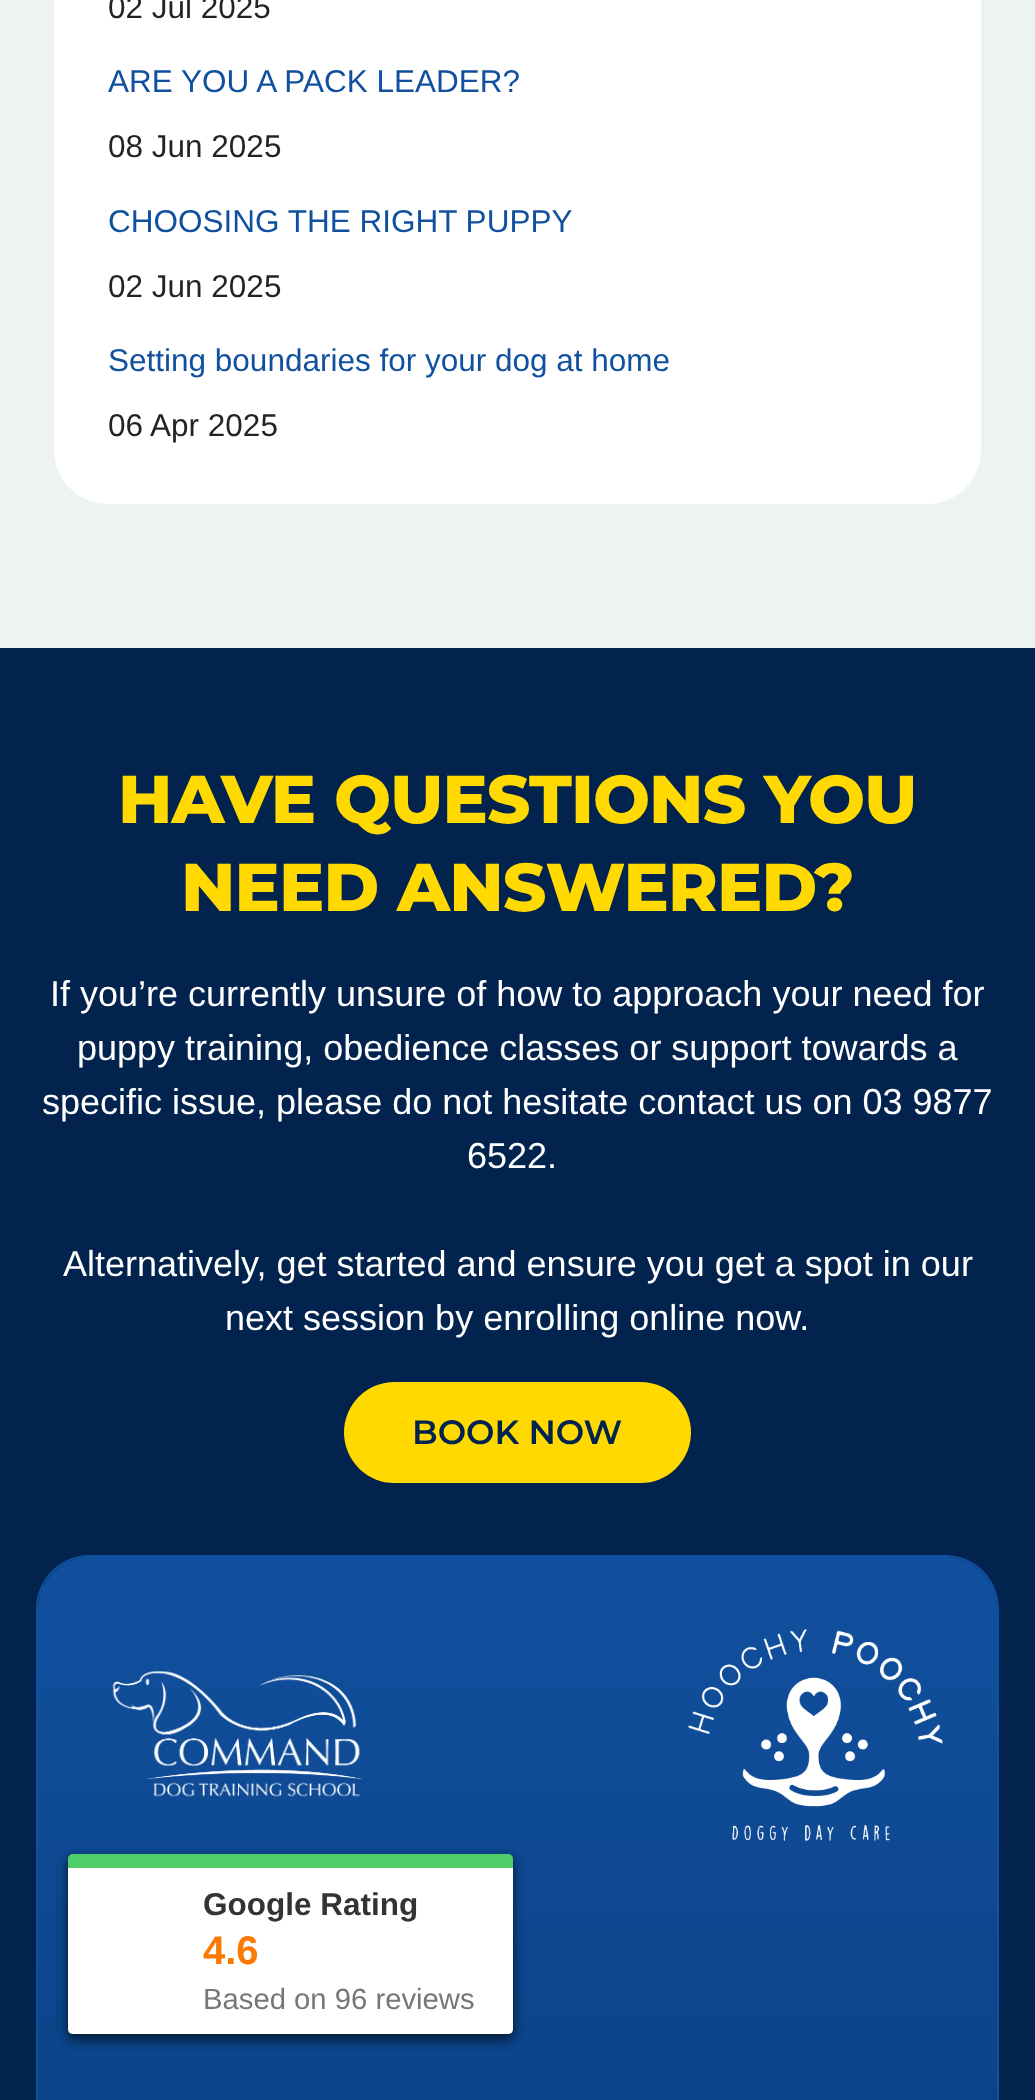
<?xml version="1.0" encoding="UTF-8"?>
<svg xmlns="http://www.w3.org/2000/svg" xmlns:xlink="http://www.w3.org/1999/xlink" width="1035" height="2100">
  <defs>
    <linearGradient id="g1" gradientUnits="userSpaceOnUse" x1="517" y1="1557" x2="518" y2="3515"><stop offset="0" stop-color="#11509f" /><stop offset="1" stop-color="#01234d" /></linearGradient>
  </defs>
  <rect width="100%" height="100%" fill="#ecf3f0" />
  <rect x="54" y="-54" width="927" height="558" rx="54" fill="#ffffff" />
  <rect y="648" width="1035" height="1452" fill="#01234d" />
  <rect x="344" y="1382" width="347" height="101" rx="50.5" fill="#ffd900" />
  <path d="M 90 1557 h 855 c 28.5 0 52 23.5 52 52 v 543 h -959 v -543 c 0 -28.5 23.5 -52 52 -52 z" fill="url(#g1)" />
  <path d="M 90 1555 h 855 c 30 0 54 24 54 54 v 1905 h -963 v -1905 c 0 -30 24 -54 54 -54 z m 0 2 h 855 c 29 0 52 23 52 52 v 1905 h -959 v -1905 c 0 -29 23 -52 52 -52 z" fill="#11509f" fill-rule="evenodd" />
  <image x="112" y="1671" width="251" height="126" xlink:href="image1.png" />
  <image x="688" y="1629" width="255" height="212" xlink:href="image2.png" />
  <rect x="68" y="1859" width="445" height="180" rx="5" fill="#000000" fill-opacity="0.26" filter="blur(5.5px)" />
  <rect x="68" y="1859" width="445" height="180" rx="5" fill="#000000" fill-opacity="0.26" filter="blur(5.5px)" />
  <rect x="68" y="1859" width="445" height="180" rx="5" fill="#000000" fill-opacity="0.26" filter="blur(5.5px)" />
  <path d="M 73 1854 h 435 c 3 0 5 2 5 5 v 9 h -445 v -9 c 0 -3 2 -5 5 -5 z" fill="#4fce6a" />
  <path d="M 68 1868 h 445 v 161 c 0 3 -2 5 -5 5 h -435 c -3 0 -5 -2 -5 -5 z" fill="#ffffff" />
  <text x="108" y="18" style="font-family: Liberation Sans; font-size: 31.5px; fill: #1f2522">02 Jul 2025</text>
  <text x="108" y="92" style="font-family: Liberation Sans; font-size: 31.5px; fill: #11509f">ARE YOU A PACK LEADER?</text>
  <text x="108" y="157" style="font-family: Liberation Sans; font-size: 31.5px; fill: #1f2522">08 Jun 2025</text>
  <text x="108" y="232" style="font-family: Liberation Sans; font-size: 31.5px; fill: #11509f">CHOOSING THE RIGHT PUPPY</text>
  <text x="108" y="297" style="font-family: Liberation Sans; font-size: 31.5px; fill: #1f2522">02 Jun 2025</text>
  <text x="108" y="371" style="font-family: Liberation Sans; font-size: 31.5px; fill: #11509f">Setting boundaries for your dog at home</text>
  <text x="108" y="436" style="font-family: Liberation Sans; font-size: 31.5px; fill: #1f2522">06 Apr 2025</text>
  <text x="118" y="823" style="font-family: Montserrat; font-size: 67.5px; font-weight: 100; letter-spacing: -0.9px; fill: #ffd900">HAVE QUESTIONS YOU</text>
  <text x="181" y="911" style="font-family: Montserrat; font-size: 67.5px; font-weight: 100; letter-spacing: -0.9px; fill: #ffd900">NEED ANSWERED?</text>
  <text x="50" y="1006" style="font-family: Liberation Sans; font-size: 36px; fill: #ffffff">If you’re currently unsure of how to approach your need for</text>
  <text x="77" y="1060" style="font-family: Liberation Sans; font-size: 36px; fill: #ffffff">puppy training, obedience classes or support towards a</text>
  <text x="42" y="1114" style="font-family: Liberation Sans; font-size: 36px; fill: #ffffff">specific issue, please do not hesitate contact us on 03 9877</text>
  <text x="467" y="1168" style="font-family: Liberation Sans; font-size: 36px; fill: #ffffff">6522.</text>
  <text x="63" y="1276" style="font-family: Liberation Sans; font-size: 36px; fill: #ffffff">Alternatively, get started and ensure you get a spot in our</text>
  <text x="225" y="1330" style="font-family: Liberation Sans; font-size: 36px; fill: #ffffff">next session by enrolling online now.</text>
  <text x="412" y="1444" style="font-family: 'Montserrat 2'; font-size: 33.75px; font-weight: 100; fill: #01234d">BOOK NOW</text>
  <text x="203" y="1915" style="font-family: Liberation Sans; font-size: 31.5px; font-weight: bold; fill: #333333">Google Rating</text>
  <text x="203" y="1964" style="font-family: Liberation Sans; font-size: 40px; font-weight: bold; fill: #fb7900">4.6</text>
  <text x="203" y="2009" style="font-family: Liberation Sans; font-size: 29.25px; fill: #777777">Based on 96 reviews</text>
</svg>
